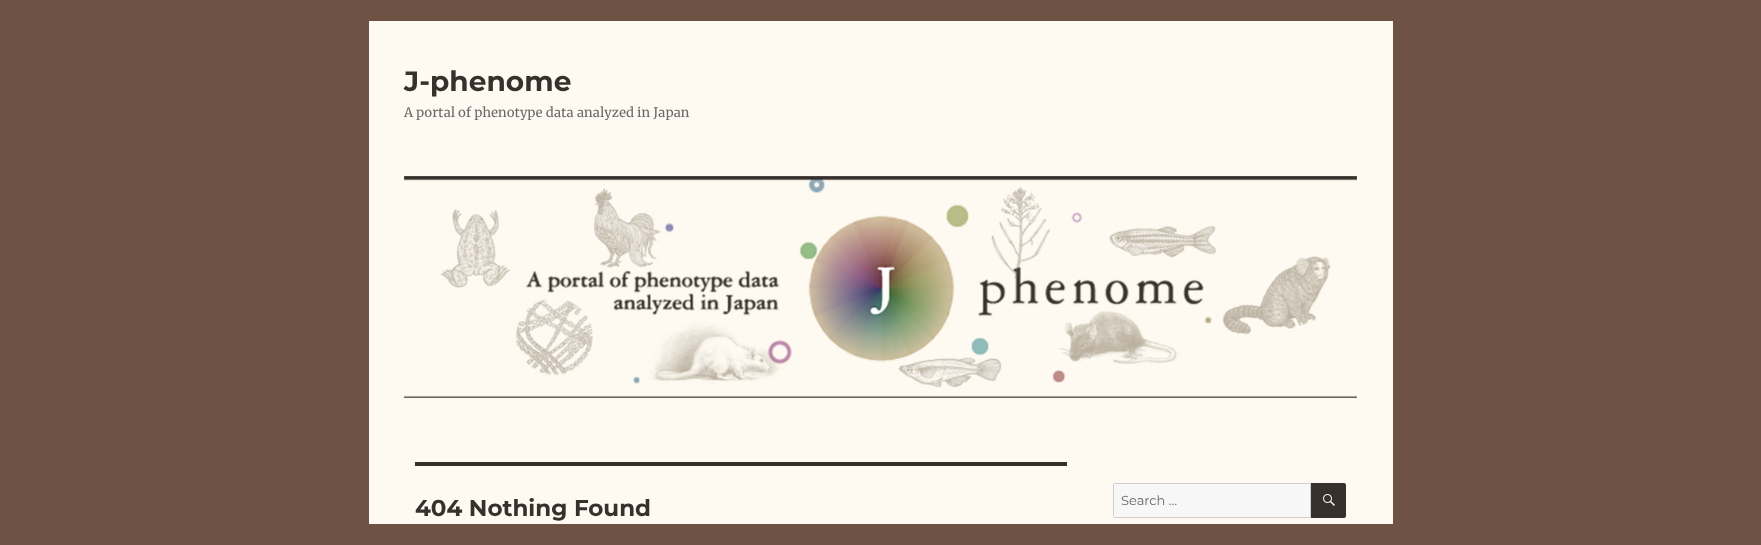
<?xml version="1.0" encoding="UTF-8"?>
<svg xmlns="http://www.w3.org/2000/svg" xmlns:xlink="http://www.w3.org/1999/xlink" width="1761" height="545">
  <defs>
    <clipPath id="clip1"><rect x="404" y="64" width="286" height="56" /></clipPath>
  </defs>
  <rect width="100%" height="100%" fill="#6e5345" />
  <rect x="369" y="21" width="1024" height="503" fill="#fefaf1" />
  <image x="404" y="176" width="953" height="222" xlink:href="image1.png" />
  <rect x="415" y="462" width="652" height="4" fill="#38302c" />
  <path d="M 1115 483.5 h 195.5 v 34 h -195.5 c -1 0 -1.5 -0.5 -1.5 -1.5 v -31 c 0 -1 0.5 -1.5 1.5 -1.5 z" fill="#f7f7f7" stroke="#d1cfce" />
  <path d="M 1311 483 h 33 c 1 0 2 1 2 2 v 31 c 0 1 -1 2 -2 2 h -33 z" fill="#38302c" />
  <image x="1323" y="494" width="12" height="12" xlink:href="image2.png" />
  <text x="404" y="91" style="font-family: Montserrat; font-size: 28px; font-weight: 100; fill: #38302c">J-phenome</text>
  <g clip-path="url(#clip1)">
    <text x="404" y="117" style="font-family: Merriweather; font-size: 13px; fill: #686868">A portal of phenotype data analyzed in Japan</text>
  </g>
  <text x="415" y="516" style="font-family: Montserrat; font-size: 23px; font-weight: 100; fill: #38302c">404 Nothing Found</text>
  <text x="1121" y="505" style="font-family: 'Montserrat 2'; font-size: 13px; font-weight: 100; fill: #686868">Search …</text>
</svg>
